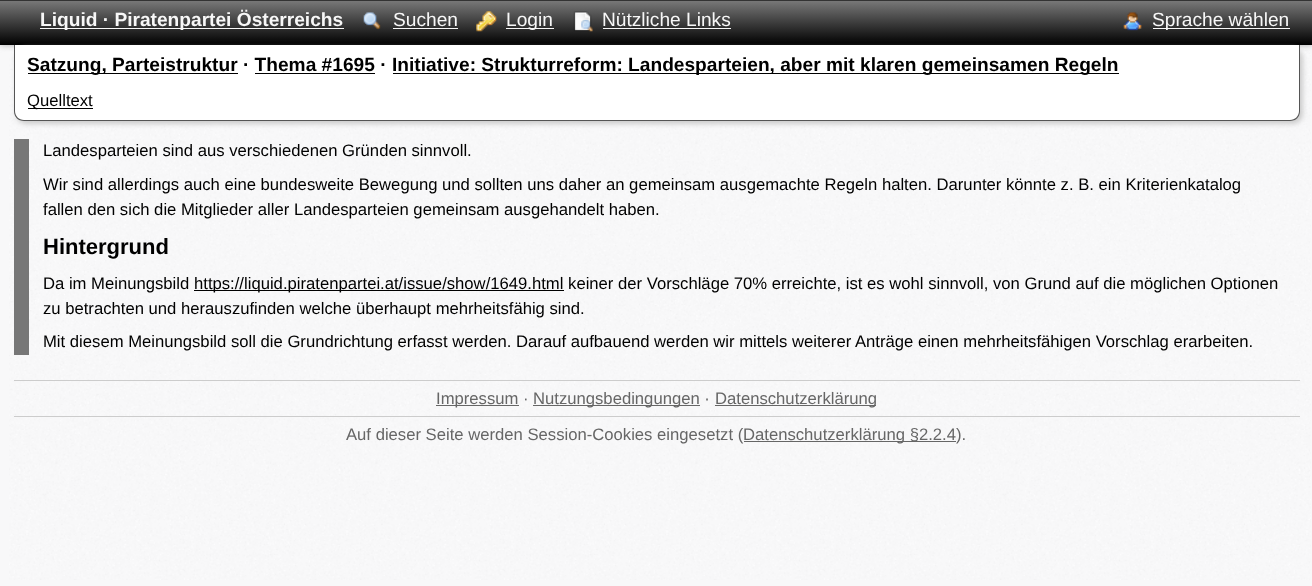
<?xml version="1.0" encoding="UTF-8"?>
<svg xmlns="http://www.w3.org/2000/svg" xmlns:xlink="http://www.w3.org/1999/xlink" width="1312" height="586">
  <defs>
    <linearGradient id="g1" gradientUnits="userSpaceOnUse" x1="656" y1="1.2" x2="656" y2="45"><stop offset="0" stop-color="#777777" /><stop offset="1" stop-color="#000000" /></linearGradient>
  </defs>
  <rect width="100%" height="100%" fill="#f8f8f9" />
  <image x="9" y="45" width="1302" height="535" xlink:href="image1.png" />
  <rect width="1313" height="45" fill="#aaaaaa" filter="blur(3px)" />
  <rect y="1" width="1312" height="44" fill="url(#g1)" />
  <rect width="1312" height="1" fill="#333333" />
  <rect x="40" y="28" width="304" height="1" fill="#f7f7f7" />
  <image x="363" y="12" width="18" height="18" xlink:href="image2.png" />
  <rect x="393" y="28" width="65" height="1" fill="#f7f7f7" />
  <image x="476" y="11" width="21" height="21" xlink:href="image3.png" />
  <rect x="506" y="28" width="48" height="1" fill="#f7f7f7" />
  <image x="573" y="11" width="20" height="21" xlink:href="image4.png" />
  <rect x="603" y="28" width="128" height="1" fill="#f7f7f7" />
  <image x="1123" y="12" width="19" height="19" xlink:href="image5.png" />
  <rect x="1153" y="28" width="137" height="1" fill="#f7f7f7" />
  <rect x="16" y="48" width="1287" height="76" rx="10" fill="#cccccc" filter="blur(2.5px)" />
  <path d="M 14 45 h 1286 v 66 c 0 5.5 -4.5 10 -10 10 h -1266 c -5.5 0 -10 -4.5 -10 -10 z" fill="#ffffff" />
  <path d="M 14 45 h 1286 v 66 c 0 6 -4 10 -10 10 h -1266 c -6 0 -10 -4 -10 -10 z m 1 0 h 1284 v 66 c 0 5 -4 9 -9 9 h -1266 c -5 0 -9 -4 -9 -9 z" fill="#555555" fill-rule="evenodd" />
  <rect x="28" y="73" width="210" height="1" fill="#000000" />
  <rect x="393" y="73" width="726" height="1" fill="#000000" />
  <rect x="255" y="73" width="120" height="1" fill="#000000" />
  <rect x="28" y="108" width="65" height="1" fill="#000000" />
  <rect x="14" y="139" width="15" height="216" fill="#777777" />
  <rect x="194" y="290" width="370" height="1" fill="#000000" />
  <rect x="14" y="380" width="1286" height="1" fill="#cccccc" />
  <rect x="436" y="405" width="83" height="1" fill="#666666" />
  <rect x="533" y="405" width="167" height="1" fill="#666666" />
  <rect x="715" y="405" width="161" height="1" fill="#666666" />
  <rect x="14" y="416" width="1286" height="1" fill="#cccccc" />
  <rect x="744" y="441" width="212" height="1" fill="#666666" />
  <text x="40" y="26" style="font-family: Liberation Sans; font-size: 19.15px; font-weight: bold; fill: #f7f7f7">Liquid · Piratenpartei Österreichs</text>
  <text x="393" y="26" style="font-family: Liberation Sans; font-size: 19.15px; fill: #f7f7f7">Suchen</text>
  <text x="506" y="26" style="font-family: Liberation Sans; font-size: 19.15px; fill: #f7f7f7">Login</text>
  <text x="602" y="26" style="font-family: Liberation Sans; font-size: 19.15px; fill: #f7f7f7">Nützliche Links</text>
  <text x="1152" y="26" style="font-family: Liberation Sans; font-size: 19.15px; fill: #f7f7f7">Sprache wählen</text>
  <text x="27" y="71" style="font-family: Liberation Sans; font-size: 19.15px; font-weight: bold; fill: #000000">Satzung, Parteistruktur · Thema #1695 ·</text>
  <text x="392" y="71" style="font-family: Liberation Sans; font-size: 19.15px; font-weight: bold; fill: #000000">Initiative: Strukturreform: Landesparteien, aber mit klaren gemeinsamen Regeln</text>
  <text x="27" y="106" style="font-family: Liberation Sans; font-size: 16.67px; fill: #000000">Quelltext</text>
  <text x="43" y="156" style="font-family: Liberation Sans; font-size: 16.67px; fill: #000000">Landesparteien sind aus verschiedenen Gründen sinnvoll.</text>
  <text x="43" y="190" style="font-family: Liberation Sans; font-size: 16.67px; fill: #000000">Wir sind allerdings auch eine bundesweite Bewegung und sollten uns daher an gemeinsam ausgemachte Regeln halten. Darunter könnte z. B. ein Kriterienkatalog</text>
  <text x="43" y="215" style="font-family: Liberation Sans; font-size: 16.67px; fill: #000000">fallen den sich die Mitglieder aller Landesparteien gemeinsam ausgehandelt haben.</text>
  <text x="43" y="254" style="font-family: Liberation Sans; font-size: 22px; font-weight: bold; fill: #000000">Hintergrund</text>
  <text x="43" y="289" style="font-family: Liberation Sans; font-size: 16.67px; fill: #000000">Da im Meinungsbild</text>
  <text x="194" y="289" style="font-family: Liberation Sans; font-size: 16.67px; fill: #000000">https://liquid.piratenpartei.at/issue/show/1649.html keiner der Vorschläge 70% erreichte, ist es wohl sinnvoll, von Grund auf die möglichen Optionen</text>
  <text x="43" y="314" style="font-family: Liberation Sans; font-size: 16.67px; fill: #000000">zu betrachten und herauszufinden welche überhaupt mehrheitsfähig sind.</text>
  <text x="43" y="347" style="font-family: Liberation Sans; font-size: 16.67px; fill: #000000">Mit diesem Meinungsbild soll die Grundrichtung erfasst werden. Darauf aufbauend werden wir mittels weiterer Anträge einen mehrheitsfähigen Vorschlag erarbeiten.</text>
  <text x="436" y="404" style="font-family: Liberation Sans; font-size: 16.67px; fill: #666666">Impressum ·</text>
  <text x="533" y="404" style="font-family: Liberation Sans; font-size: 16.67px; fill: #666666">Nutzungsbedingungen ·</text>
  <text x="715" y="404" style="font-family: Liberation Sans; font-size: 16.67px; fill: #666666">Datenschutzerklärung</text>
  <text x="346" y="440" style="font-family: Liberation Sans; font-size: 16.67px; fill: #666666">Auf dieser Seite werden Session-Cookies eingesetzt (</text>
  <text x="743" y="440" style="font-family: Liberation Sans; font-size: 16.67px; fill: #666666">Datenschutzerklärung §2.2.4).</text>
</svg>
